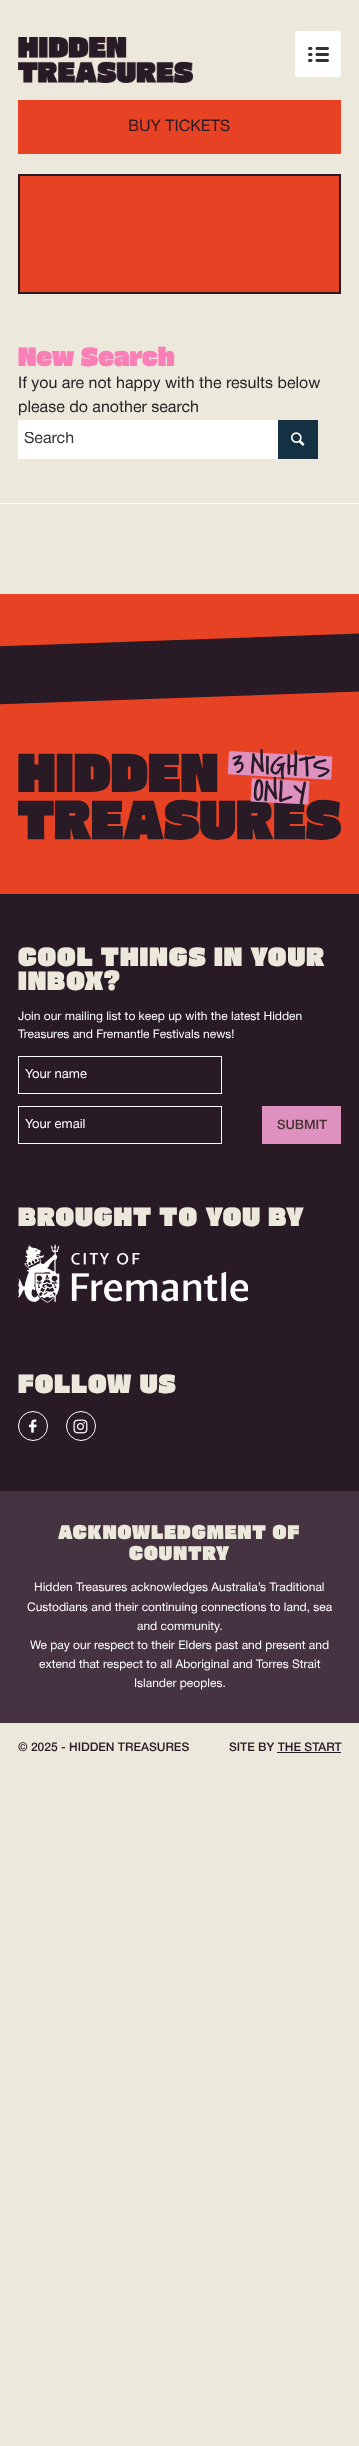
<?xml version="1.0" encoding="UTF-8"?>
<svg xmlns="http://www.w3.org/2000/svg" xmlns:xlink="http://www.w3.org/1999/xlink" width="359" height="2446">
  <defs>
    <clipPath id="clip1"><rect x="24" y="432" width="246" height="15" /></clipPath>
    <clipPath id="clip2"><rect x="25" y="1069" width="190" height="13" /></clipPath>
    <clipPath id="clip3"><rect x="25" y="1119" width="190" height="13" /></clipPath>
  </defs>
  <rect width="100%" height="100%" fill="#ede8dc" />
  <image x="18" y="37" width="175" height="46" xlink:href="image1.png" />
  <rect x="295.5" y="31.5" width="45" height="45" rx="1.5" fill="#ffffff" stroke="#ffffff" />
  <image x="308" y="47" width="21" height="15" xlink:href="image2.png" />
  <rect x="18" y="100" width="323" height="54" fill="#e84225" />
  <rect x="19" y="175" width="321" height="118" fill="#e84225" stroke="#281b25" stroke-width="2" />
  <rect x="18" y="420" width="260" height="39" fill="#ffffff" />
  <rect x="278" y="420" width="40" height="39" fill="#143144" />
  <image x="291" y="432" width="14" height="14" xlink:href="image3.png" />
  <rect y="503" width="359" height="1" fill="#ffffff" />
  <rect y="594" width="359" height="300" fill="#e84225" />
  <path d="M -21 647 l 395 -14 l 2 58 l -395 14 z" fill="#281b25" />
  <image x="18" y="749" width="323" height="91" xlink:href="image4.png" />
  <rect y="894" width="359" height="597" fill="#281b25" />
  <rect x="18.5" y="1056.5" width="203" height="37" fill="none" stroke="#ffffff" />
  <rect x="18.5" y="1106.5" width="203" height="37" fill="none" stroke="#ffffff" />
  <rect x="262" y="1106" width="79" height="38" fill="#de91be" />
  <image x="18" y="1244" width="230" height="59" xlink:href="image5.png" />
  <circle cx="33" cy="1426" r="14.5" fill="none" stroke="#ffffff" />
  <image x="28" y="1419" width="9" height="14" xlink:href="image6.png" />
  <circle cx="81" cy="1426" r="14.5" fill="none" stroke="#ffffff" />
  <image x="73" y="1419" width="15" height="15" xlink:href="image7.png" />
  <rect y="1491" width="359" height="232" fill="#453341" />
  <rect x="277" y="1752" width="64" height="1" fill="#281b25" />
  <text x="128" y="131" style="font-family: Helvetica Neue; font-size: 16px; fill: #281b25">BUY TICKETS</text>
  <text x="18" y="366" style="font-family: Gasoek One; font-size: 24px; fill: #f97fb6">New Search</text>
  <text x="18" y="388" style="font-family: Helvetica Neue; font-size: 16px; fill: #222222">If you are not happy with the results below</text>
  <text x="18" y="412" style="font-family: Helvetica Neue; font-size: 16px; fill: #222222">please do another search</text>
  <g clip-path="url(#clip1)">
    <text x="24" y="443" style="font-family: Helvetica Neue; font-size: 16px; fill: #333333">Search</text>
  </g>
  <text x="18" y="966" style="font-family: Gasoek One; font-size: 24px; letter-spacing: 1px; fill: #ede8dc">COOL THINGS IN YOUR</text>
  <text x="18" y="990" style="font-family: Gasoek One; font-size: 24px; letter-spacing: 1px; fill: #ede8dc">INBOX?</text>
  <text x="18" y="1020" style="font-family: Helvetica Neue; font-size: 12px; fill: #ffffff">Join our mailing list to keep up with the latest Hidden</text>
  <text x="18" y="1038" style="font-family: Helvetica Neue; font-size: 12px; fill: #ffffff">Treasures and Fremantle Festivals news!</text>
  <g clip-path="url(#clip2)">
    <text x="25" y="1078" style="font-family: Helvetica Neue; font-size: 13px; fill: #ffffff">Your name</text>
  </g>
  <g clip-path="url(#clip3)">
    <text x="25" y="1128" style="font-family: Helvetica Neue; font-size: 13px; fill: #ffffff">Your email</text>
  </g>
  <text x="277" y="1129" style="font-family: Helvetica Neue; font-size: 13px; font-weight: 500; fill: #473333">SUBMIT</text>
  <text x="18" y="1226" style="font-family: Gasoek One; font-size: 24px; letter-spacing: 1px; fill: #ede8dc">BROUGHT TO YOU BY</text>
  <text x="18" y="1393" style="font-family: Gasoek One; font-size: 24px; letter-spacing: 1px; fill: #ede8dc">FOLLOW US</text>
  <text x="58" y="1539" style="font-family: Gasoek One; font-size: 18px; letter-spacing: 1px; fill: #ede8dc">ACKNOWLEDGMENT OF</text>
  <text x="129" y="1560" style="font-family: Gasoek One; font-size: 18px; letter-spacing: 1px; fill: #ede8dc">COUNTRY</text>
  <text x="34" y="1591" style="font-family: Helvetica Neue; font-size: 12px; fill: #ffffff">Hidden Treasures acknowledges Australia’s Traditional</text>
  <text x="27" y="1611" style="font-family: Helvetica Neue; font-size: 12px; fill: #ffffff">Custodians and their continuing connections to land, sea</text>
  <text x="137" y="1630" style="font-family: Helvetica Neue; font-size: 12px; fill: #ffffff">and community.</text>
  <text x="30" y="1649" style="font-family: Helvetica Neue; font-size: 12px; fill: #ffffff">We pay our respect to their Elders past and present and</text>
  <text x="39" y="1668" style="font-family: Helvetica Neue; font-size: 12px; fill: #ffffff">extend that respect to all Aboriginal and Torres Strait</text>
  <text x="134" y="1687" style="font-family: Helvetica Neue; font-size: 12px; fill: #ffffff">Islander peoples.</text>
  <text x="18" y="1751" style="font-family: Helvetica Neue; font-size: 12px; font-weight: 500; fill: #281b25">© 2025 - HIDDEN TREASURES</text>
  <text x="229" y="1751" style="font-family: Helvetica Neue; font-size: 12px; font-weight: 500; fill: #281b25">SITE BY THE START</text>
</svg>
